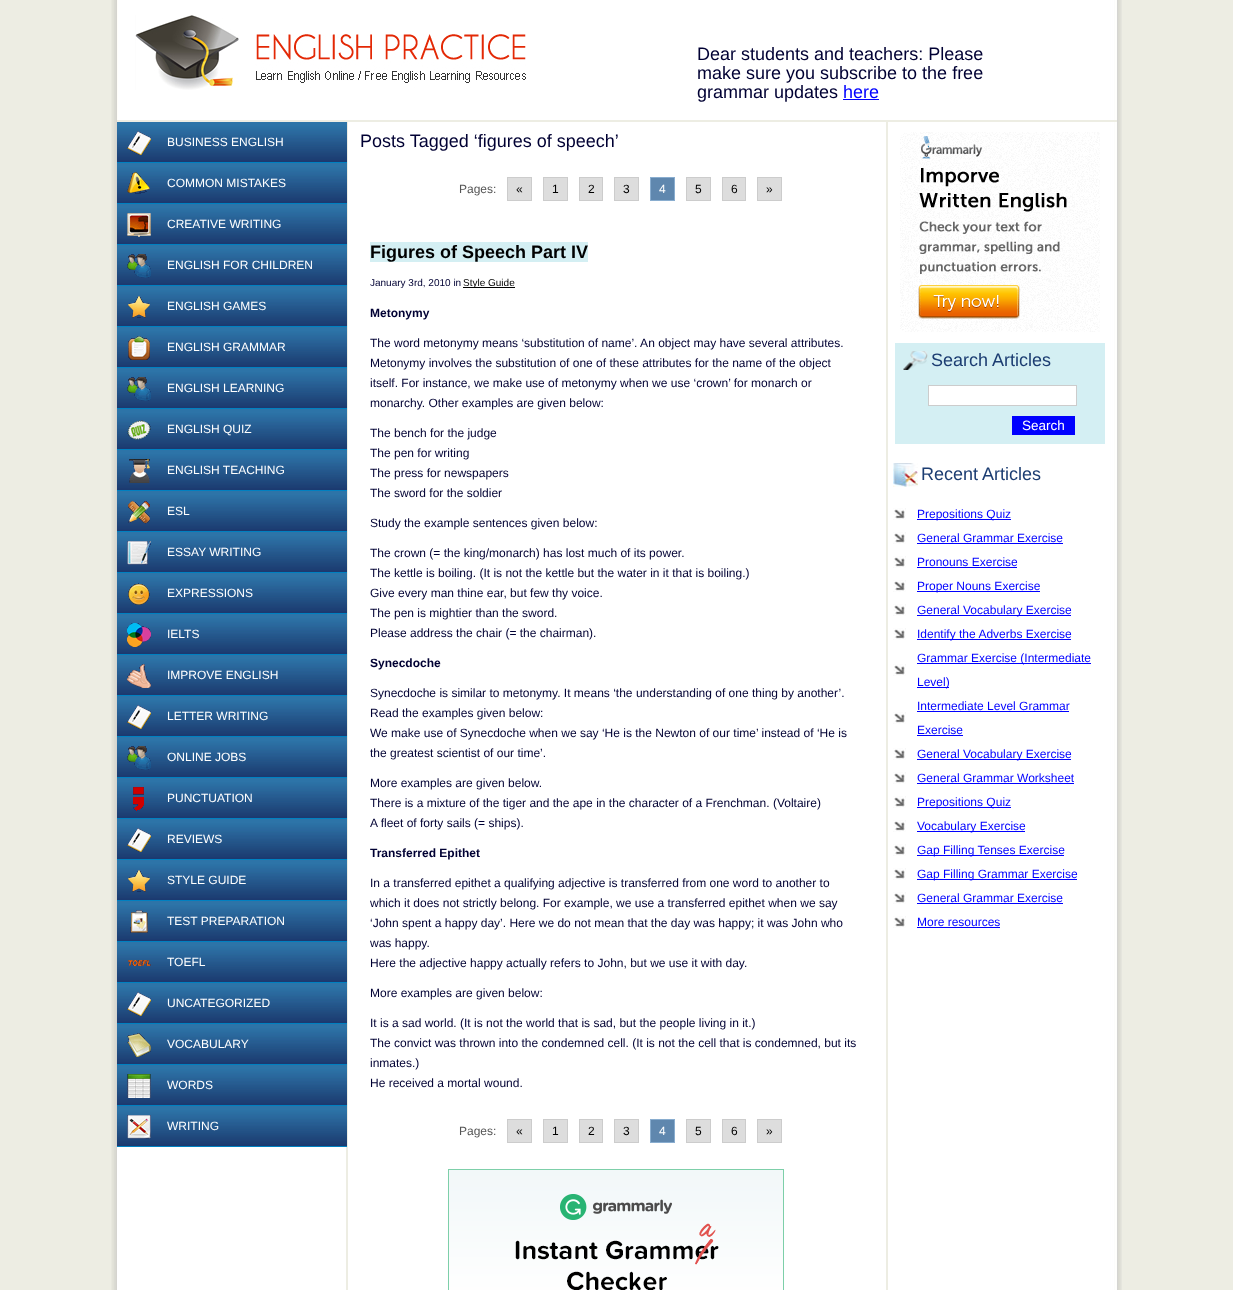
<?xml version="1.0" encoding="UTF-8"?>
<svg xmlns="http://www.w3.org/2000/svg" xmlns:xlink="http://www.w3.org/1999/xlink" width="1233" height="1290">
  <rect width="100%" height="100%" fill="#edede3" />
  <image x="111" y="0" width="1011" height="1290" xlink:href="image1.png" />
  <rect x="117" y="120" width="1000" height="2" fill="#edede3" />
  <image x="135" y="15" width="391" height="75" xlink:href="image2.png" />
  <rect x="843" y="99" width="36" height="1" fill="#0000ff" />
  <image x="117" y="122" width="771" height="1168" xlink:href="image3.png" />
  <image x="117" y="122" width="230" height="40" xlink:href="image4.png" />
  <rect x="117" y="162" width="230" height="1" fill="#0080c0" />
  <image x="127" y="131" width="24" height="24" xlink:href="image5.png" />
  <image x="117" y="163" width="230" height="40" xlink:href="image4.png" />
  <rect x="117" y="203" width="230" height="1" fill="#0080c0" />
  <image x="127" y="172" width="23" height="22" xlink:href="image6.png" />
  <image x="117" y="204" width="230" height="40" xlink:href="image4.png" />
  <rect x="117" y="244" width="230" height="1" fill="#0080c0" />
  <image x="127" y="213" width="24" height="24" xlink:href="image7.png" />
  <image x="117" y="245" width="230" height="40" xlink:href="image4.png" />
  <rect x="117" y="285" width="230" height="1" fill="#0080c0" />
  <image x="127" y="254" width="24" height="24" xlink:href="image8.png" />
  <image x="117" y="286" width="230" height="40" xlink:href="image4.png" />
  <rect x="117" y="326" width="230" height="1" fill="#0080c0" />
  <image x="128" y="296" width="22" height="22" xlink:href="image9.png" />
  <image x="117" y="327" width="230" height="40" xlink:href="image4.png" />
  <rect x="117" y="367" width="230" height="1" fill="#0080c0" />
  <image x="128" y="336" width="22" height="24" xlink:href="image10.png" />
  <image x="117" y="368" width="230" height="40" xlink:href="image4.png" />
  <rect x="117" y="408" width="230" height="1" fill="#0080c0" />
  <image x="127" y="377" width="24" height="24" xlink:href="image8.png" />
  <image x="117" y="409" width="230" height="40" xlink:href="image4.png" />
  <rect x="117" y="449" width="230" height="1" fill="#0080c0" />
  <image x="127" y="420" width="24" height="20" xlink:href="image11.png" />
  <image x="117" y="450" width="230" height="40" xlink:href="image4.png" />
  <rect x="117" y="490" width="230" height="1" fill="#0080c0" />
  <image x="129" y="459" width="21" height="24" xlink:href="image12.png" />
  <image x="117" y="491" width="230" height="40" xlink:href="image4.png" />
  <rect x="117" y="531" width="230" height="1" fill="#0080c0" />
  <image x="128" y="501" width="22" height="23" xlink:href="image13.png" />
  <image x="117" y="532" width="230" height="40" xlink:href="image4.png" />
  <rect x="117" y="572" width="230" height="1" fill="#0080c0" />
  <image x="127" y="541" width="24" height="24" xlink:href="image14.png" />
  <image x="117" y="573" width="230" height="40" xlink:href="image4.png" />
  <rect x="117" y="613" width="230" height="1" fill="#0080c0" />
  <image x="128" y="583" width="22" height="22" xlink:href="image15.png" />
  <image x="117" y="614" width="230" height="40" xlink:href="image4.png" />
  <rect x="117" y="654" width="230" height="1" fill="#0080c0" />
  <image x="127" y="623" width="24" height="24" xlink:href="image16.png" />
  <image x="117" y="655" width="230" height="40" xlink:href="image4.png" />
  <rect x="117" y="695" width="230" height="1" fill="#0080c0" />
  <image x="127" y="664" width="24" height="24" xlink:href="image17.png" />
  <image x="117" y="696" width="230" height="40" xlink:href="image4.png" />
  <rect x="117" y="736" width="230" height="1" fill="#0080c0" />
  <image x="127" y="705" width="24" height="24" xlink:href="image5.png" />
  <image x="117" y="737" width="230" height="40" xlink:href="image4.png" />
  <rect x="117" y="777" width="230" height="1" fill="#0080c0" />
  <image x="127" y="746" width="24" height="24" xlink:href="image8.png" />
  <image x="117" y="778" width="230" height="40" xlink:href="image4.png" />
  <rect x="117" y="818" width="230" height="1" fill="#0080c0" />
  <image x="133" y="787" width="11" height="24" xlink:href="image18.png" />
  <image x="117" y="819" width="230" height="40" xlink:href="image4.png" />
  <rect x="117" y="859" width="230" height="1" fill="#0080c0" />
  <image x="127" y="828" width="24" height="24" xlink:href="image5.png" />
  <image x="117" y="860" width="230" height="40" xlink:href="image4.png" />
  <rect x="117" y="900" width="230" height="1" fill="#0080c0" />
  <image x="128" y="870" width="22" height="22" xlink:href="image9.png" />
  <image x="117" y="901" width="230" height="40" xlink:href="image4.png" />
  <rect x="117" y="941" width="230" height="1" fill="#0080c0" />
  <image x="130" y="910" width="18" height="23" xlink:href="image19.png" />
  <image x="117" y="942" width="230" height="40" xlink:href="image4.png" />
  <rect x="117" y="982" width="230" height="1" fill="#0080c0" />
  <image x="128" y="960" width="23" height="6" xlink:href="image20.png" />
  <image x="117" y="983" width="230" height="40" xlink:href="image4.png" />
  <rect x="117" y="1023" width="230" height="1" fill="#0080c0" />
  <image x="127" y="992" width="24" height="24" xlink:href="image5.png" />
  <image x="117" y="1024" width="230" height="40" xlink:href="image4.png" />
  <rect x="117" y="1064" width="230" height="1" fill="#0080c0" />
  <image x="127" y="1033" width="24" height="24" xlink:href="image21.png" />
  <image x="117" y="1065" width="230" height="40" xlink:href="image4.png" />
  <rect x="117" y="1105" width="230" height="1" fill="#0080c0" />
  <image x="127" y="1074" width="24" height="24" xlink:href="image22.png" />
  <image x="117" y="1106" width="230" height="40" xlink:href="image4.png" />
  <rect x="117" y="1146" width="230" height="1" fill="#0080c0" />
  <image x="127" y="1115" width="24" height="24" xlink:href="image23.png" />
  <rect x="507.5" y="177.5" width="24" height="23" fill="#dddddd" stroke="#cccccc" />
  <rect x="543.5" y="177.5" width="24" height="23" fill="#dddddd" stroke="#cccccc" />
  <rect x="579.5" y="177.5" width="23" height="23" fill="#dddddd" stroke="#cccccc" />
  <rect x="614.5" y="177.5" width="24" height="23" fill="#dddddd" stroke="#cccccc" />
  <rect x="650.5" y="177.5" width="24" height="23" fill="#5f87ae" stroke="#89adcf" />
  <rect x="686.5" y="177.5" width="24" height="23" fill="#dddddd" stroke="#cccccc" />
  <rect x="722.5" y="177.5" width="23" height="23" fill="#dddddd" stroke="#cccccc" />
  <rect x="757.5" y="177.5" width="24" height="23" fill="#dddddd" stroke="#cccccc" />
  <rect x="370" y="242" width="218" height="20" fill="#d4eff3" />
  <rect x="463" y="287" width="52" height="1" fill="#000000" />
  <rect x="507.5" y="1119.5" width="24" height="23" fill="#dddddd" stroke="#cccccc" />
  <rect x="543.5" y="1119.5" width="24" height="23" fill="#dddddd" stroke="#cccccc" />
  <rect x="579.5" y="1119.5" width="23" height="23" fill="#dddddd" stroke="#cccccc" />
  <rect x="614.5" y="1119.5" width="24" height="23" fill="#dddddd" stroke="#cccccc" />
  <rect x="650.5" y="1119.5" width="24" height="23" fill="#5f87ae" stroke="#89adcf" />
  <rect x="686.5" y="1119.5" width="24" height="23" fill="#dddddd" stroke="#cccccc" />
  <rect x="722.5" y="1119.5" width="23" height="23" fill="#dddddd" stroke="#cccccc" />
  <rect x="757.5" y="1119.5" width="24" height="23" fill="#dddddd" stroke="#cccccc" />
  <image x="448" y="1169" width="336" height="121" xlink:href="image24.png" />
  <image x="900" y="132" width="200" height="200" xlink:href="image25.png" />
  <rect x="895" y="343" width="210" height="101" fill="#d4eff3" />
  <image x="903" y="351" width="25" height="19" xlink:href="image26.png" />
  <rect x="928.5" y="385.5" width="148" height="20" fill="#ffffff" stroke="#cccccc" />
  <rect x="1012" y="416" width="63" height="19" fill="#0000ff" />
  <image x="893" y="463" width="25" height="24" xlink:href="image27.png" />
  <image x="893" y="508" width="13" height="12" xlink:href="image28.png" />
  <rect x="917" y="519" width="94" height="1" fill="#0000ff" />
  <image x="893" y="532" width="13" height="12" xlink:href="image28.png" />
  <rect x="917" y="543" width="146" height="1" fill="#0000ff" />
  <image x="893" y="556" width="13" height="12" xlink:href="image28.png" />
  <rect x="917" y="567" width="100" height="1" fill="#0000ff" />
  <image x="893" y="580" width="13" height="12" xlink:href="image28.png" />
  <rect x="917" y="591" width="123" height="1" fill="#0000ff" />
  <image x="893" y="604" width="13" height="12" xlink:href="image28.png" />
  <rect x="917" y="615" width="154" height="1" fill="#0000ff" />
  <image x="893" y="628" width="13" height="12" xlink:href="image28.png" />
  <rect x="917" y="639" width="154" height="1" fill="#0000ff" />
  <image x="893" y="664" width="13" height="12" xlink:href="image28.png" />
  <rect x="917" y="663" width="174" height="1" fill="#0000ff" />
  <rect x="917" y="687" width="32" height="1" fill="#0000ff" />
  <image x="893" y="712" width="13" height="12" xlink:href="image28.png" />
  <rect x="917" y="711" width="152" height="1" fill="#0000ff" />
  <rect x="917" y="735" width="46" height="1" fill="#0000ff" />
  <image x="893" y="748" width="13" height="12" xlink:href="image28.png" />
  <rect x="917" y="759" width="154" height="1" fill="#0000ff" />
  <image x="893" y="772" width="13" height="12" xlink:href="image28.png" />
  <rect x="917" y="783" width="157" height="1" fill="#0000ff" />
  <image x="893" y="796" width="13" height="12" xlink:href="image28.png" />
  <rect x="917" y="807" width="94" height="1" fill="#0000ff" />
  <image x="893" y="820" width="13" height="12" xlink:href="image28.png" />
  <rect x="917" y="831" width="108" height="1" fill="#0000ff" />
  <image x="893" y="844" width="13" height="12" xlink:href="image28.png" />
  <rect x="917" y="855" width="147" height="1" fill="#0000ff" />
  <image x="893" y="868" width="13" height="12" xlink:href="image28.png" />
  <rect x="917" y="879" width="160" height="1" fill="#0000ff" />
  <image x="893" y="892" width="13" height="12" xlink:href="image28.png" />
  <rect x="917" y="903" width="146" height="1" fill="#0000ff" />
  <image x="893" y="916" width="13" height="12" xlink:href="image28.png" />
  <rect x="917" y="927" width="83" height="1" fill="#0000ff" />
  <text x="697" y="60" style="font-family: Liberation Sans; font-size: 18px; fill: #000033">Dear students and teachers: Please</text>
  <text x="697" y="79" style="font-family: Liberation Sans; font-size: 18px; fill: #000033">make sure you subscribe to the free</text>
  <text x="697" y="98" style="font-family: Liberation Sans; font-size: 18px; fill: #000033">grammar updates</text>
  <text x="843" y="98" style="font-family: Liberation Sans; font-size: 18px; fill: #0000ff">here</text>
  <text x="167" y="146" style="font-family: Liberation Sans; font-size: 12px; fill: #ffffff">BUSINESS ENGLISH</text>
  <text x="167" y="187" style="font-family: Liberation Sans; font-size: 12px; fill: #ffffff">COMMON MISTAKES</text>
  <text x="167" y="228" style="font-family: Liberation Sans; font-size: 12px; fill: #ffffff">CREATIVE WRITING</text>
  <text x="167" y="269" style="font-family: Liberation Sans; font-size: 12px; fill: #ffffff">ENGLISH FOR CHILDREN</text>
  <text x="167" y="310" style="font-family: Liberation Sans; font-size: 12px; fill: #ffffff">ENGLISH GAMES</text>
  <text x="167" y="351" style="font-family: Liberation Sans; font-size: 12px; fill: #ffffff">ENGLISH GRAMMAR</text>
  <text x="167" y="392" style="font-family: Liberation Sans; font-size: 12px; fill: #ffffff">ENGLISH LEARNING</text>
  <text x="167" y="433" style="font-family: Liberation Sans; font-size: 12px; fill: #ffffff">ENGLISH QUIZ</text>
  <text x="167" y="474" style="font-family: Liberation Sans; font-size: 12px; fill: #ffffff">ENGLISH TEACHING</text>
  <text x="167" y="515" style="font-family: Liberation Sans; font-size: 12px; fill: #ffffff">ESL</text>
  <text x="167" y="556" style="font-family: Liberation Sans; font-size: 12px; fill: #ffffff">ESSAY WRITING</text>
  <text x="167" y="597" style="font-family: Liberation Sans; font-size: 12px; fill: #ffffff">EXPRESSIONS</text>
  <text x="167" y="638" style="font-family: Liberation Sans; font-size: 12px; fill: #ffffff">IELTS</text>
  <text x="167" y="679" style="font-family: Liberation Sans; font-size: 12px; fill: #ffffff">IMPROVE ENGLISH</text>
  <text x="167" y="720" style="font-family: Liberation Sans; font-size: 12px; fill: #ffffff">LETTER WRITING</text>
  <text x="167" y="761" style="font-family: Liberation Sans; font-size: 12px; fill: #ffffff">ONLINE JOBS</text>
  <text x="167" y="802" style="font-family: Liberation Sans; font-size: 12px; fill: #ffffff">PUNCTUATION</text>
  <text x="167" y="843" style="font-family: Liberation Sans; font-size: 12px; fill: #ffffff">REVIEWS</text>
  <text x="167" y="884" style="font-family: Liberation Sans; font-size: 12px; fill: #ffffff">STYLE GUIDE</text>
  <text x="167" y="925" style="font-family: Liberation Sans; font-size: 12px; fill: #ffffff">TEST PREPARATION</text>
  <text x="167" y="966" style="font-family: Liberation Sans; font-size: 12px; fill: #ffffff">TOEFL</text>
  <text x="167" y="1007" style="font-family: Liberation Sans; font-size: 12px; fill: #ffffff">UNCATEGORIZED</text>
  <text x="167" y="1048" style="font-family: Liberation Sans; font-size: 12px; fill: #ffffff">VOCABULARY</text>
  <text x="167" y="1089" style="font-family: Liberation Sans; font-size: 12px; fill: #ffffff">WORDS</text>
  <text x="167" y="1130" style="font-family: Liberation Sans; font-size: 12px; fill: #ffffff">WRITING</text>
  <text x="360" y="147" style="font-family: Liberation Sans; font-size: 18px; fill: #000033">Posts Tagged ‘figures of speech’</text>
  <text x="459" y="193" style="font-family: Liberation Sans; font-size: 12px; fill: #555555">Pages:</text>
  <text x="516" y="193" style="font-family: Liberation Sans; font-size: 12px; fill: #000000">«</text>
  <text x="552" y="193" style="font-family: Liberation Sans; font-size: 12px; fill: #000000">1</text>
  <text x="588" y="193" style="font-family: Liberation Sans; font-size: 12px; fill: #000000">2</text>
  <text x="623" y="193" style="font-family: Liberation Sans; font-size: 12px; fill: #000000">3</text>
  <text x="659" y="193" style="font-family: Liberation Sans; font-size: 12px; fill: #ffffff">4</text>
  <text x="695" y="193" style="font-family: Liberation Sans; font-size: 12px; fill: #000000">5</text>
  <text x="731" y="193" style="font-family: Liberation Sans; font-size: 12px; fill: #000000">6</text>
  <text x="766" y="193" style="font-family: Liberation Sans; font-size: 12px; fill: #000000">»</text>
  <text x="370" y="258" style="font-family: Liberation Sans; font-size: 18px; font-weight: bold; fill: #000000">Figures of Speech Part IV</text>
  <text x="370" y="286" style="font-family: Liberation Sans; font-size: 10px; fill: #000033">January 3rd, 2010 in</text>
  <text x="463" y="286" style="font-family: Liberation Sans; font-size: 10px; fill: #000000">Style Guide</text>
  <text x="370" y="317" style="font-family: Liberation Sans; font-size: 12px; font-weight: bold; fill: #000033">Metonymy</text>
  <text x="370" y="347" style="font-family: Liberation Sans; font-size: 12px; fill: #000033">The word metonymy means ‘substitution of name’. An object may have several attributes.</text>
  <text x="370" y="367" style="font-family: Liberation Sans; font-size: 12px; fill: #000033">Metonymy involves the substitution of one of these attributes for the name of the object</text>
  <text x="370" y="387" style="font-family: Liberation Sans; font-size: 12px; fill: #000033">itself. For instance, we make use of metonymy when we use ‘crown’ for monarch or</text>
  <text x="370" y="407" style="font-family: Liberation Sans; font-size: 12px; fill: #000033">monarchy. Other examples are given below:</text>
  <text x="370" y="437" style="font-family: Liberation Sans; font-size: 12px; fill: #000033">The bench for the judge</text>
  <text x="370" y="457" style="font-family: Liberation Sans; font-size: 12px; fill: #000033">The pen for writing</text>
  <text x="370" y="477" style="font-family: Liberation Sans; font-size: 12px; fill: #000033">The press for newspapers</text>
  <text x="370" y="497" style="font-family: Liberation Sans; font-size: 12px; fill: #000033">The sword for the soldier</text>
  <text x="370" y="527" style="font-family: Liberation Sans; font-size: 12px; fill: #000033">Study the example sentences given below:</text>
  <text x="370" y="557" style="font-family: Liberation Sans; font-size: 12px; fill: #000033">The crown (= the king/monarch) has lost much of its power.</text>
  <text x="370" y="577" style="font-family: Liberation Sans; font-size: 12px; fill: #000033">The kettle is boiling. (It is not the kettle but the water in it that is boiling.)</text>
  <text x="370" y="597" style="font-family: Liberation Sans; font-size: 12px; fill: #000033">Give every man thine ear, but few thy voice.</text>
  <text x="370" y="617" style="font-family: Liberation Sans; font-size: 12px; fill: #000033">The pen is mightier than the sword.</text>
  <text x="370" y="637" style="font-family: Liberation Sans; font-size: 12px; fill: #000033">Please address the chair (= the chairman).</text>
  <text x="370" y="667" style="font-family: Liberation Sans; font-size: 12px; font-weight: bold; fill: #000033">Synecdoche</text>
  <text x="370" y="697" style="font-family: Liberation Sans; font-size: 12px; fill: #000033">Synecdoche is similar to metonymy. It means ‘the understanding of one thing by another’.</text>
  <text x="370" y="717" style="font-family: Liberation Sans; font-size: 12px; fill: #000033">Read the examples given below:</text>
  <text x="370" y="737" style="font-family: Liberation Sans; font-size: 12px; fill: #000033">We make use of Synecdoche when we say ‘He is the Newton of our time’ instead of ‘He is</text>
  <text x="370" y="757" style="font-family: Liberation Sans; font-size: 12px; fill: #000033">the greatest scientist of our time’.</text>
  <text x="370" y="787" style="font-family: Liberation Sans; font-size: 12px; fill: #000033">More examples are given below.</text>
  <text x="370" y="807" style="font-family: Liberation Sans; font-size: 12px; fill: #000033">There is a mixture of the tiger and the ape in the character of a Frenchman. (Voltaire)</text>
  <text x="370" y="827" style="font-family: Liberation Sans; font-size: 12px; fill: #000033">A fleet of forty sails (= ships).</text>
  <text x="370" y="857" style="font-family: Liberation Sans; font-size: 12px; font-weight: bold; fill: #000033">Transferred Epithet</text>
  <text x="370" y="887" style="font-family: Liberation Sans; font-size: 12px; fill: #000033">In a transferred epithet a qualifying adjective is transferred from one word to another to</text>
  <text x="370" y="907" style="font-family: Liberation Sans; font-size: 12px; fill: #000033">which it does not strictly belong. For example, we use a transferred epithet when we say</text>
  <text x="370" y="927" style="font-family: Liberation Sans; font-size: 12px; fill: #000033">‘John spent a happy day’. Here we do not mean that the day was happy; it was John who</text>
  <text x="370" y="947" style="font-family: Liberation Sans; font-size: 12px; fill: #000033">was happy.</text>
  <text x="370" y="967" style="font-family: Liberation Sans; font-size: 12px; fill: #000033">Here the adjective happy actually refers to John, but we use it with day.</text>
  <text x="370" y="997" style="font-family: Liberation Sans; font-size: 12px; fill: #000033">More examples are given below:</text>
  <text x="370" y="1027" style="font-family: Liberation Sans; font-size: 12px; fill: #000033">It is a sad world. (It is not the world that is sad, but the people living in it.)</text>
  <text x="370" y="1047" style="font-family: Liberation Sans; font-size: 12px; fill: #000033">The convict was thrown into the condemned cell. (It is not the cell that is condemned, but its</text>
  <text x="370" y="1067" style="font-family: Liberation Sans; font-size: 12px; fill: #000033">inmates.)</text>
  <text x="370" y="1087" style="font-family: Liberation Sans; font-size: 12px; fill: #000033">He received a mortal wound.</text>
  <text x="459" y="1135" style="font-family: Liberation Sans; font-size: 12px; fill: #555555">Pages:</text>
  <text x="516" y="1135" style="font-family: Liberation Sans; font-size: 12px; fill: #000000">«</text>
  <text x="552" y="1135" style="font-family: Liberation Sans; font-size: 12px; fill: #000000">1</text>
  <text x="588" y="1135" style="font-family: Liberation Sans; font-size: 12px; fill: #000000">2</text>
  <text x="623" y="1135" style="font-family: Liberation Sans; font-size: 12px; fill: #000000">3</text>
  <text x="659" y="1135" style="font-family: Liberation Sans; font-size: 12px; fill: #ffffff">4</text>
  <text x="695" y="1135" style="font-family: Liberation Sans; font-size: 12px; fill: #000000">5</text>
  <text x="731" y="1135" style="font-family: Liberation Sans; font-size: 12px; fill: #000000">6</text>
  <text x="766" y="1135" style="font-family: Liberation Sans; font-size: 12px; fill: #000000">»</text>
  <text x="931" y="366" style="font-family: Liberation Sans; font-size: 18px; fill: #1c3d72">Search Articles</text>
  <text x="1022" y="430" style="font-family: Liberation Sans; font-size: 13.5px; fill: #ffffff">Search</text>
  <text x="921" y="480" style="font-family: Liberation Sans; font-size: 18px; fill: #1c3d72">Recent Articles</text>
  <text x="917" y="518" style="font-family: Liberation Sans; font-size: 12px; fill: #0000ff">Prepositions Quiz</text>
  <text x="917" y="542" style="font-family: Liberation Sans; font-size: 12px; fill: #0000ff">General Grammar Exercise</text>
  <text x="917" y="566" style="font-family: Liberation Sans; font-size: 12px; fill: #0000ff">Pronouns Exercise</text>
  <text x="917" y="590" style="font-family: Liberation Sans; font-size: 12px; fill: #0000ff">Proper Nouns Exercise</text>
  <text x="917" y="614" style="font-family: Liberation Sans; font-size: 12px; fill: #0000ff">General Vocabulary Exercise</text>
  <text x="917" y="638" style="font-family: Liberation Sans; font-size: 12px; fill: #0000ff">Identify the Adverbs Exercise</text>
  <text x="917" y="662" style="font-family: Liberation Sans; font-size: 12px; fill: #0000ff">Grammar Exercise (Intermediate</text>
  <text x="917" y="686" style="font-family: Liberation Sans; font-size: 12px; fill: #0000ff">Level)</text>
  <text x="917" y="710" style="font-family: Liberation Sans; font-size: 12px; fill: #0000ff">Intermediate Level Grammar</text>
  <text x="917" y="734" style="font-family: Liberation Sans; font-size: 12px; fill: #0000ff">Exercise</text>
  <text x="917" y="758" style="font-family: Liberation Sans; font-size: 12px; fill: #0000ff">General Vocabulary Exercise</text>
  <text x="917" y="782" style="font-family: Liberation Sans; font-size: 12px; fill: #0000ff">General Grammar Worksheet</text>
  <text x="917" y="806" style="font-family: Liberation Sans; font-size: 12px; fill: #0000ff">Prepositions Quiz</text>
  <text x="917" y="830" style="font-family: Liberation Sans; font-size: 12px; fill: #0000ff">Vocabulary Exercise</text>
  <text x="917" y="854" style="font-family: Liberation Sans; font-size: 12px; fill: #0000ff">Gap Filling Tenses Exercise</text>
  <text x="917" y="878" style="font-family: Liberation Sans; font-size: 12px; fill: #0000ff">Gap Filling Grammar Exercise</text>
  <text x="917" y="902" style="font-family: Liberation Sans; font-size: 12px; fill: #0000ff">General Grammar Exercise</text>
  <text x="917" y="926" style="font-family: Liberation Sans; font-size: 12px; fill: #0000ff">More resources</text>
</svg>
